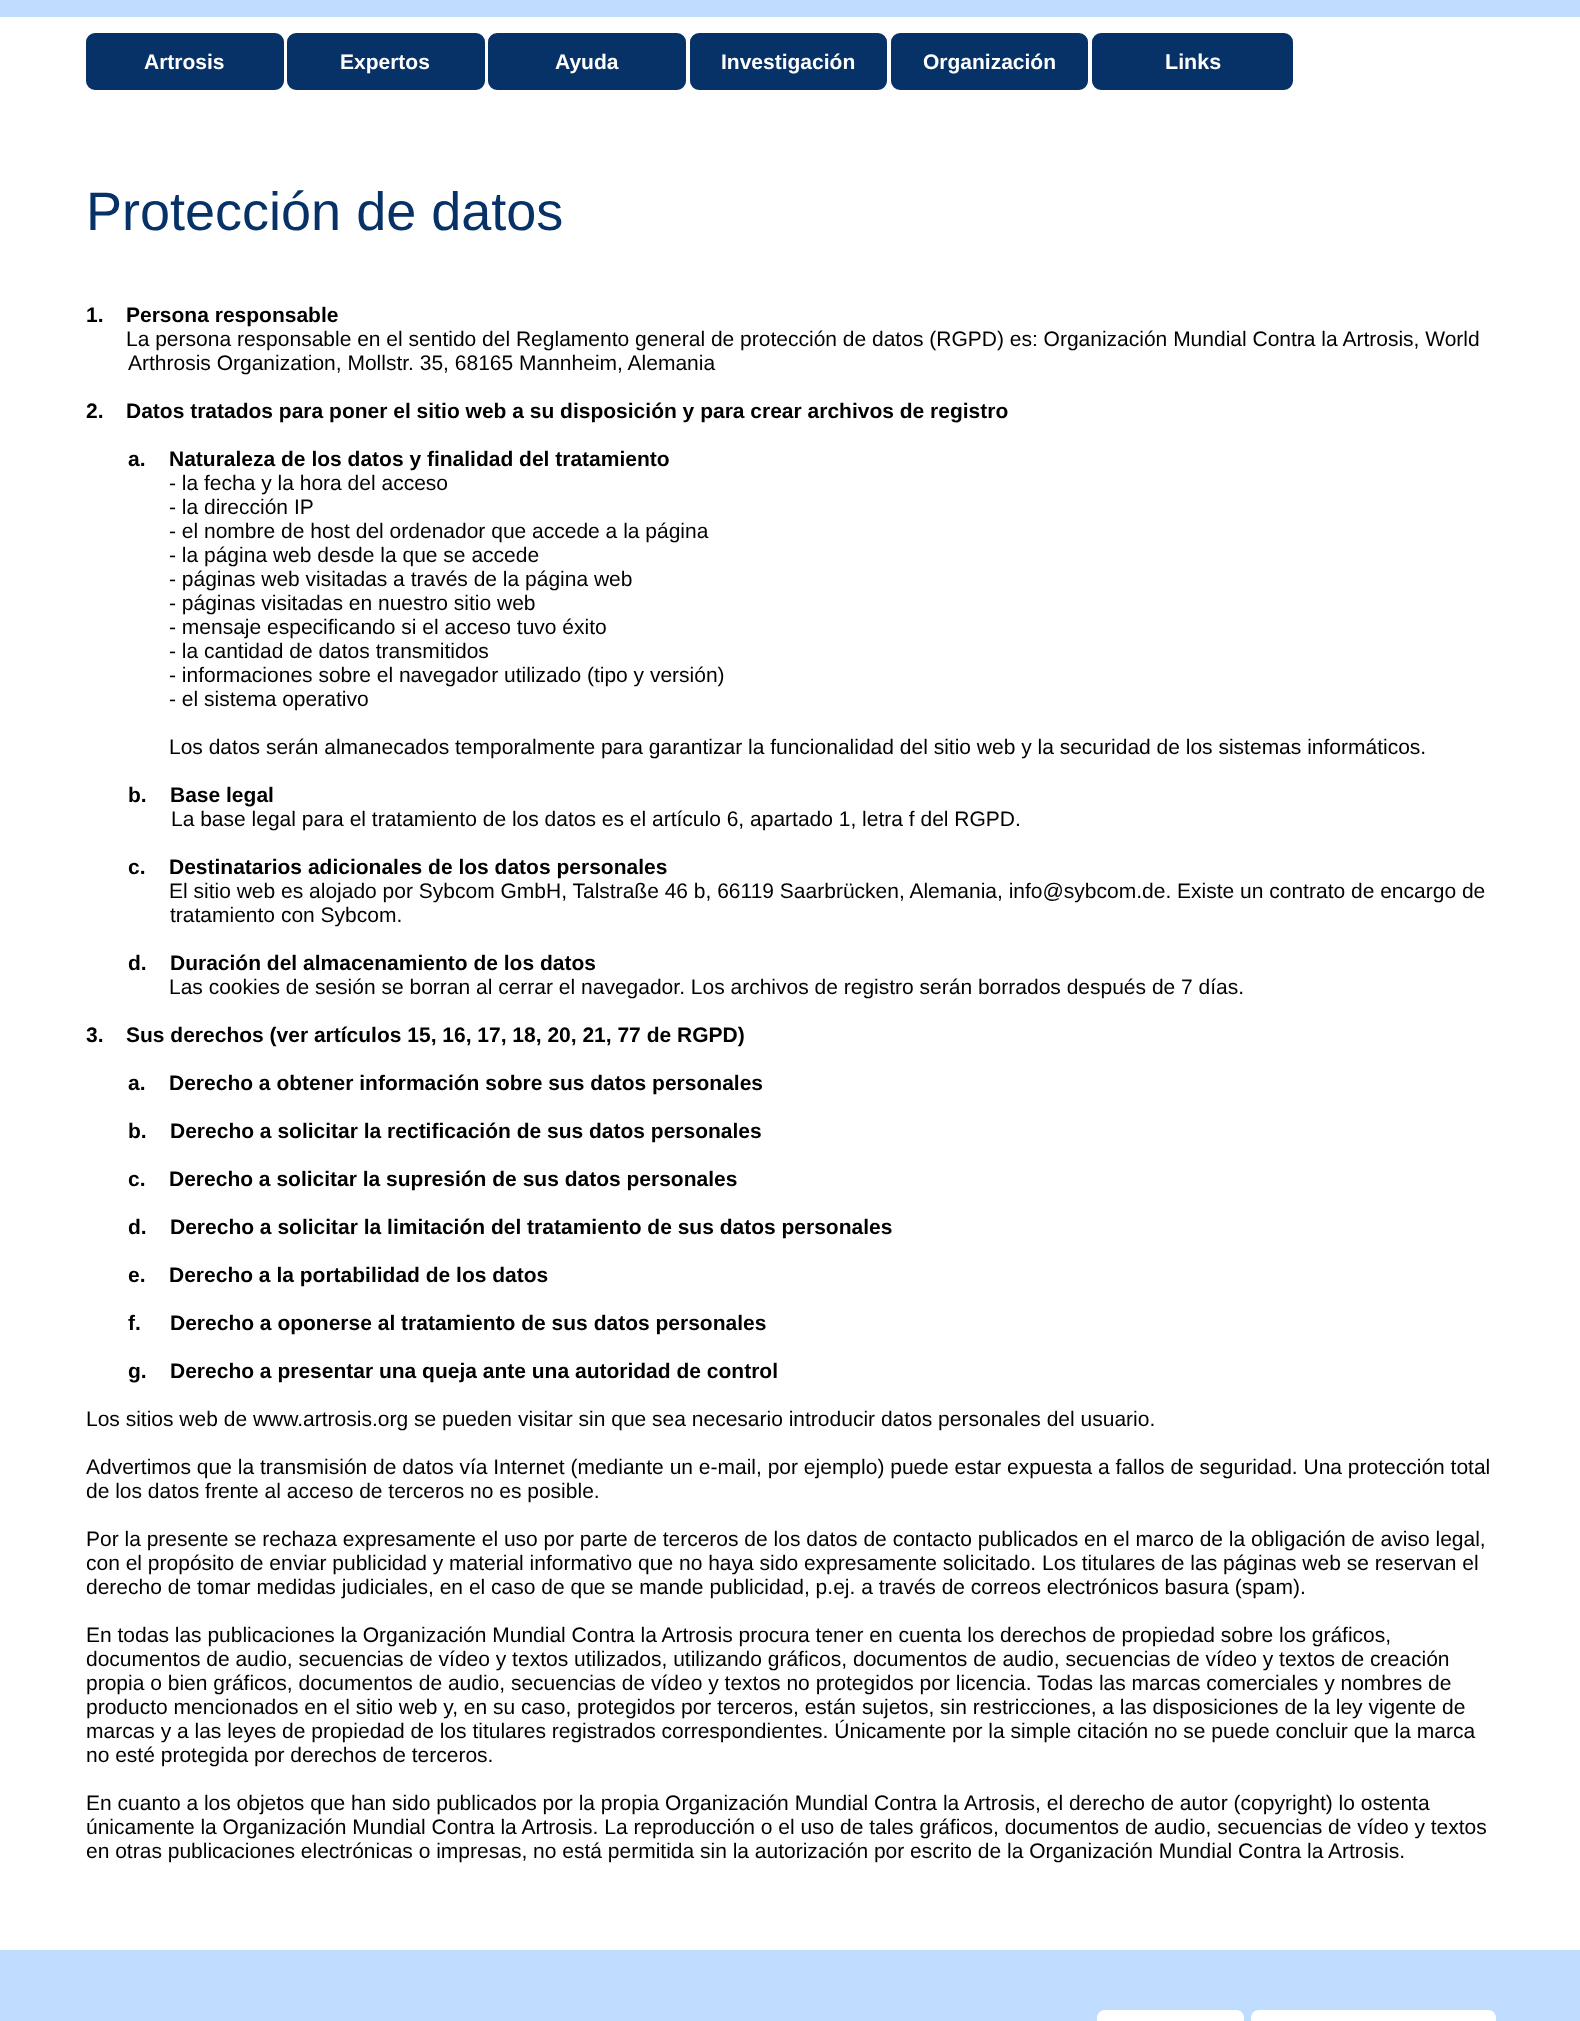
<?xml version="1.0" encoding="UTF-8"?>
<svg xmlns="http://www.w3.org/2000/svg" xmlns:xlink="http://www.w3.org/1999/xlink" width="1580" height="2021">
  <rect width="100%" height="100%" fill="#ffffff" />
  <rect width="1580" height="17" fill="#c0dcff" />
  <rect x="87" y="34" width="196" height="55" rx="8" fill="#073267" stroke="#073267" stroke-width="2" />
  <rect x="288" y="34" width="196" height="55" rx="8" fill="#073267" stroke="#073267" stroke-width="2" />
  <rect x="489" y="34" width="196" height="55" rx="8" fill="#073267" stroke="#073267" stroke-width="2" />
  <rect x="691" y="34" width="195" height="55" rx="8" fill="#073267" stroke="#073267" stroke-width="2" />
  <rect x="892" y="34" width="195" height="55" rx="8" fill="#073267" stroke="#073267" stroke-width="2" />
  <rect x="1093" y="34" width="199" height="55" rx="8" fill="#073267" stroke="#073267" stroke-width="2" />
  <rect y="1950" width="1580" height="71" fill="#c0dcff" />
  <path d="M 1105 2010 h 131 c 4.5 0 8 3.5 8 8 v 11 h -147 v -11 c 0 -4.5 3.5 -8 8 -8 z" fill="#ffffff" />
  <path d="M 1259 2010 h 229 c 4.5 0 8 3.5 8 8 v 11 h -245 v -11 c 0 -4.5 3.5 -8 8 -8 z" fill="#ffffff" />
  <text x="144" y="69" style="font-family: Liberation Sans; font-size: 21px; font-weight: bold; fill: #ffffff">Artrosis</text>
  <text x="340" y="69" style="font-family: Liberation Sans; font-size: 21px; font-weight: bold; fill: #ffffff">Expertos</text>
  <text x="555" y="69" style="font-family: Liberation Sans; font-size: 21px; font-weight: bold; fill: #ffffff">Ayuda</text>
  <text x="721" y="69" style="font-family: Liberation Sans; font-size: 21px; font-weight: bold; fill: #ffffff">Investigación</text>
  <text x="923" y="69" style="font-family: Liberation Sans; font-size: 21px; font-weight: bold; fill: #ffffff">Organización</text>
  <text x="1165" y="69" style="font-family: Liberation Sans; font-size: 21.5px; font-weight: bold; fill: #ffffff">Links</text>
  <text x="86" y="230" style="font-family: Liberation Sans; font-size: 54px; fill: #073267">Protección de datos</text>
  <text x="86" y="322" style="font-family: Liberation Sans; font-size: 21px; font-weight: bold; fill: #000000">1.</text>
  <text x="126" y="322" style="font-family: Liberation Sans; font-size: 21px; font-weight: bold; fill: #000000">Persona responsable</text>
  <text x="126" y="346" style="font-family: Liberation Sans; font-size: 21px; fill: #000000">La persona responsable en el sentido del Reglamento general de protección de datos (RGPD) es: Organización Mundial Contra la Artrosis, World</text>
  <text x="128" y="370" style="font-family: Liberation Sans; font-size: 21px; fill: #000000">Arthrosis Organization, Mollstr. 35, 68165 Mannheim, Alemania</text>
  <text x="86" y="418" style="font-family: Liberation Sans; font-size: 21px; font-weight: bold; fill: #000000">2.</text>
  <text x="126" y="418" style="font-family: Liberation Sans; font-size: 21px; font-weight: bold; fill: #000000">Datos tratados para poner el sitio web a su disposición y para crear archivos de registro</text>
  <text x="128" y="466" style="font-family: Liberation Sans; font-size: 21px; font-weight: bold; fill: #000000">a.</text>
  <text x="169" y="466" style="font-family: Liberation Sans; font-size: 21px; font-weight: bold; fill: #000000">Naturaleza de los datos y finalidad del tratamiento</text>
  <text x="169" y="490" style="font-family: Liberation Sans; font-size: 21px; fill: #000000">- la fecha y la hora del acceso</text>
  <text x="169" y="514" style="font-family: Liberation Sans; font-size: 21px; fill: #000000">- la dirección IP</text>
  <text x="169" y="538" style="font-family: Liberation Sans; font-size: 21px; fill: #000000">- el nombre de host del ordenador que accede a la página</text>
  <text x="169" y="562" style="font-family: Liberation Sans; font-size: 21px; fill: #000000">- la página web desde la que se accede</text>
  <text x="169" y="586" style="font-family: Liberation Sans; font-size: 21px; fill: #000000">- páginas web visitadas a través de la página web</text>
  <text x="169" y="610" style="font-family: Liberation Sans; font-size: 21px; fill: #000000">- páginas visitadas en nuestro sitio web</text>
  <text x="169" y="634" style="font-family: Liberation Sans; font-size: 21px; fill: #000000">- mensaje especificando si el acceso tuvo éxito</text>
  <text x="169" y="658" style="font-family: Liberation Sans; font-size: 21px; fill: #000000">- la cantidad de datos transmitidos</text>
  <text x="169" y="682" style="font-family: Liberation Sans; font-size: 21px; fill: #000000">- informaciones sobre el navegador utilizado (tipo y versión)</text>
  <text x="169" y="706" style="font-family: Liberation Sans; font-size: 21px; fill: #000000">- el sistema operativo</text>
  <text x="169" y="754" style="font-family: Liberation Sans; font-size: 21px; fill: #000000">Los datos serán almanecados temporalmente para garantizar la funcionalidad del sitio web y la securidad de los sistemas informáticos.</text>
  <text x="128" y="802" style="font-family: Liberation Sans; font-size: 21px; font-weight: bold; fill: #000000">b.</text>
  <text x="170" y="802" style="font-family: Liberation Sans; font-size: 21px; font-weight: bold; fill: #000000">Base legal</text>
  <text x="171" y="826" style="font-family: Liberation Sans; font-size: 21px; fill: #000000">La base legal para el tratamiento de los datos es el artículo 6, apartado 1, letra f del RGPD.</text>
  <text x="128" y="874" style="font-family: Liberation Sans; font-size: 21px; font-weight: bold; fill: #000000">c.</text>
  <text x="169" y="874" style="font-family: Liberation Sans; font-size: 21px; font-weight: bold; fill: #000000">Destinatarios adicionales de los datos personales</text>
  <text x="169" y="898" style="font-family: Liberation Sans; font-size: 21px; fill: #000000">El sitio web es alojado por Sybcom GmbH, Talstraße 46 b, 66119 Saarbrücken, Alemania, info@sybcom.de. Existe un contrato de encargo de</text>
  <text x="170" y="922" style="font-family: Liberation Sans; font-size: 21px; fill: #000000">tratamiento con Sybcom.</text>
  <text x="128" y="970" style="font-family: Liberation Sans; font-size: 21px; font-weight: bold; fill: #000000">d.</text>
  <text x="170" y="970" style="font-family: Liberation Sans; font-size: 21px; font-weight: bold; fill: #000000">Duración del almacenamiento de los datos</text>
  <text x="169" y="994" style="font-family: Liberation Sans; font-size: 21px; fill: #000000">Las cookies de sesión se borran al cerrar el navegador. Los archivos de registro serán borrados después de 7 días.</text>
  <text x="86" y="1042" style="font-family: Liberation Sans; font-size: 21px; font-weight: bold; fill: #000000">3.</text>
  <text x="126" y="1042" style="font-family: Liberation Sans; font-size: 21px; font-weight: bold; fill: #000000">Sus derechos (ver artículos 15, 16, 17, 18, 20, 21, 77 de RGPD)</text>
  <text x="128" y="1090" style="font-family: Liberation Sans; font-size: 21px; font-weight: bold; fill: #000000">a.</text>
  <text x="169" y="1090" style="font-family: Liberation Sans; font-size: 21px; font-weight: bold; fill: #000000">Derecho a obtener información sobre sus datos personales</text>
  <text x="128" y="1138" style="font-family: Liberation Sans; font-size: 21px; font-weight: bold; fill: #000000">b.</text>
  <text x="170" y="1138" style="font-family: Liberation Sans; font-size: 21px; font-weight: bold; fill: #000000">Derecho a solicitar la rectificación de sus datos personales</text>
  <text x="128" y="1186" style="font-family: Liberation Sans; font-size: 21px; font-weight: bold; fill: #000000">c.</text>
  <text x="169" y="1186" style="font-family: Liberation Sans; font-size: 21px; font-weight: bold; fill: #000000">Derecho a solicitar la supresión de sus datos personales</text>
  <text x="128" y="1234" style="font-family: Liberation Sans; font-size: 21px; font-weight: bold; fill: #000000">d.</text>
  <text x="170" y="1234" style="font-family: Liberation Sans; font-size: 21px; font-weight: bold; fill: #000000">Derecho a solicitar la limitación del tratamiento de sus datos personales</text>
  <text x="128" y="1282" style="font-family: Liberation Sans; font-size: 21px; font-weight: bold; fill: #000000">e.</text>
  <text x="169" y="1282" style="font-family: Liberation Sans; font-size: 21px; font-weight: bold; fill: #000000">Derecho a la portabilidad de los datos</text>
  <text x="128" y="1330" style="font-family: Liberation Sans; font-size: 21px; font-weight: bold; fill: #000000">f.</text>
  <text x="170" y="1330" style="font-family: Liberation Sans; font-size: 21px; font-weight: bold; fill: #000000">Derecho a oponerse al tratamiento de sus datos personales</text>
  <text x="128" y="1378" style="font-family: Liberation Sans; font-size: 21px; font-weight: bold; fill: #000000">g.</text>
  <text x="170" y="1378" style="font-family: Liberation Sans; font-size: 21px; font-weight: bold; fill: #000000">Derecho a presentar una queja ante una autoridad de control</text>
  <text x="86" y="1426" style="font-family: Liberation Sans; font-size: 21px; fill: #000000">Los sitios web de www.artrosis.org se pueden visitar sin que sea necesario introducir datos personales del usuario.</text>
  <text x="86" y="1474" style="font-family: Liberation Sans; font-size: 21px; fill: #000000">Advertimos que la transmisión de datos vía Internet (mediante un e-mail, por ejemplo) puede estar expuesta a fallos de seguridad. Una protección total</text>
  <text x="86" y="1498" style="font-family: Liberation Sans; font-size: 21px; fill: #000000">de los datos frente al acceso de terceros no es posible.</text>
  <text x="86" y="1546" style="font-family: Liberation Sans; font-size: 21px; fill: #000000">Por la presente se rechaza expresamente el uso por parte de terceros de los datos de contacto publicados en el marco de la obligación de aviso legal,</text>
  <text x="86" y="1570" style="font-family: Liberation Sans; font-size: 21px; fill: #000000">con el propósito de enviar publicidad y material informativo que no haya sido expresamente solicitado. Los titulares de las páginas web se reservan el</text>
  <text x="86" y="1594" style="font-family: Liberation Sans; font-size: 21px; fill: #000000">derecho de tomar medidas judiciales, en el caso de que se mande publicidad, p.ej. a través de correos electrónicos basura (spam).</text>
  <text x="86" y="1642" style="font-family: Liberation Sans; font-size: 21px; fill: #000000">En todas las publicaciones la Organización Mundial Contra la Artrosis procura tener en cuenta los derechos de propiedad sobre los gráficos,</text>
  <text x="86" y="1666" style="font-family: Liberation Sans; font-size: 21px; fill: #000000">documentos de audio, secuencias de vídeo y textos utilizados, utilizando gráficos, documentos de audio, secuencias de vídeo y textos de creación</text>
  <text x="86" y="1690" style="font-family: Liberation Sans; font-size: 21px; fill: #000000">propia o bien gráficos, documentos de audio, secuencias de vídeo y textos no protegidos por licencia. Todas las marcas comerciales y nombres de</text>
  <text x="86" y="1714" style="font-family: Liberation Sans; font-size: 21px; fill: #000000">producto mencionados en el sitio web y, en su caso, protegidos por terceros, están sujetos, sin restricciones, a las disposiciones de la ley vigente de</text>
  <text x="86" y="1738" style="font-family: Liberation Sans; font-size: 21px; fill: #000000">marcas y a las leyes de propiedad de los titulares registrados correspondientes. Únicamente por la simple citación no se puede concluir que la marca</text>
  <text x="86" y="1762" style="font-family: Liberation Sans; font-size: 21px; fill: #000000">no esté protegida por derechos de terceros.</text>
  <text x="86" y="1810" style="font-family: Liberation Sans; font-size: 21px; fill: #000000">En cuanto a los objetos que han sido publicados por la propia Organización Mundial Contra la Artrosis, el derecho de autor (copyright) lo ostenta</text>
  <text x="86" y="1834" style="font-family: Liberation Sans; font-size: 21px; fill: #000000">únicamente la Organización Mundial Contra la Artrosis. La reproducción o el uso de tales gráficos, documentos de audio, secuencias de vídeo y textos</text>
  <text x="86" y="1858" style="font-family: Liberation Sans; font-size: 21px; fill: #000000">en otras publicaciones electrónicas o impresas, no está permitida sin la autorización por escrito de la Organización Mundial Contra la Artrosis.</text>
</svg>
